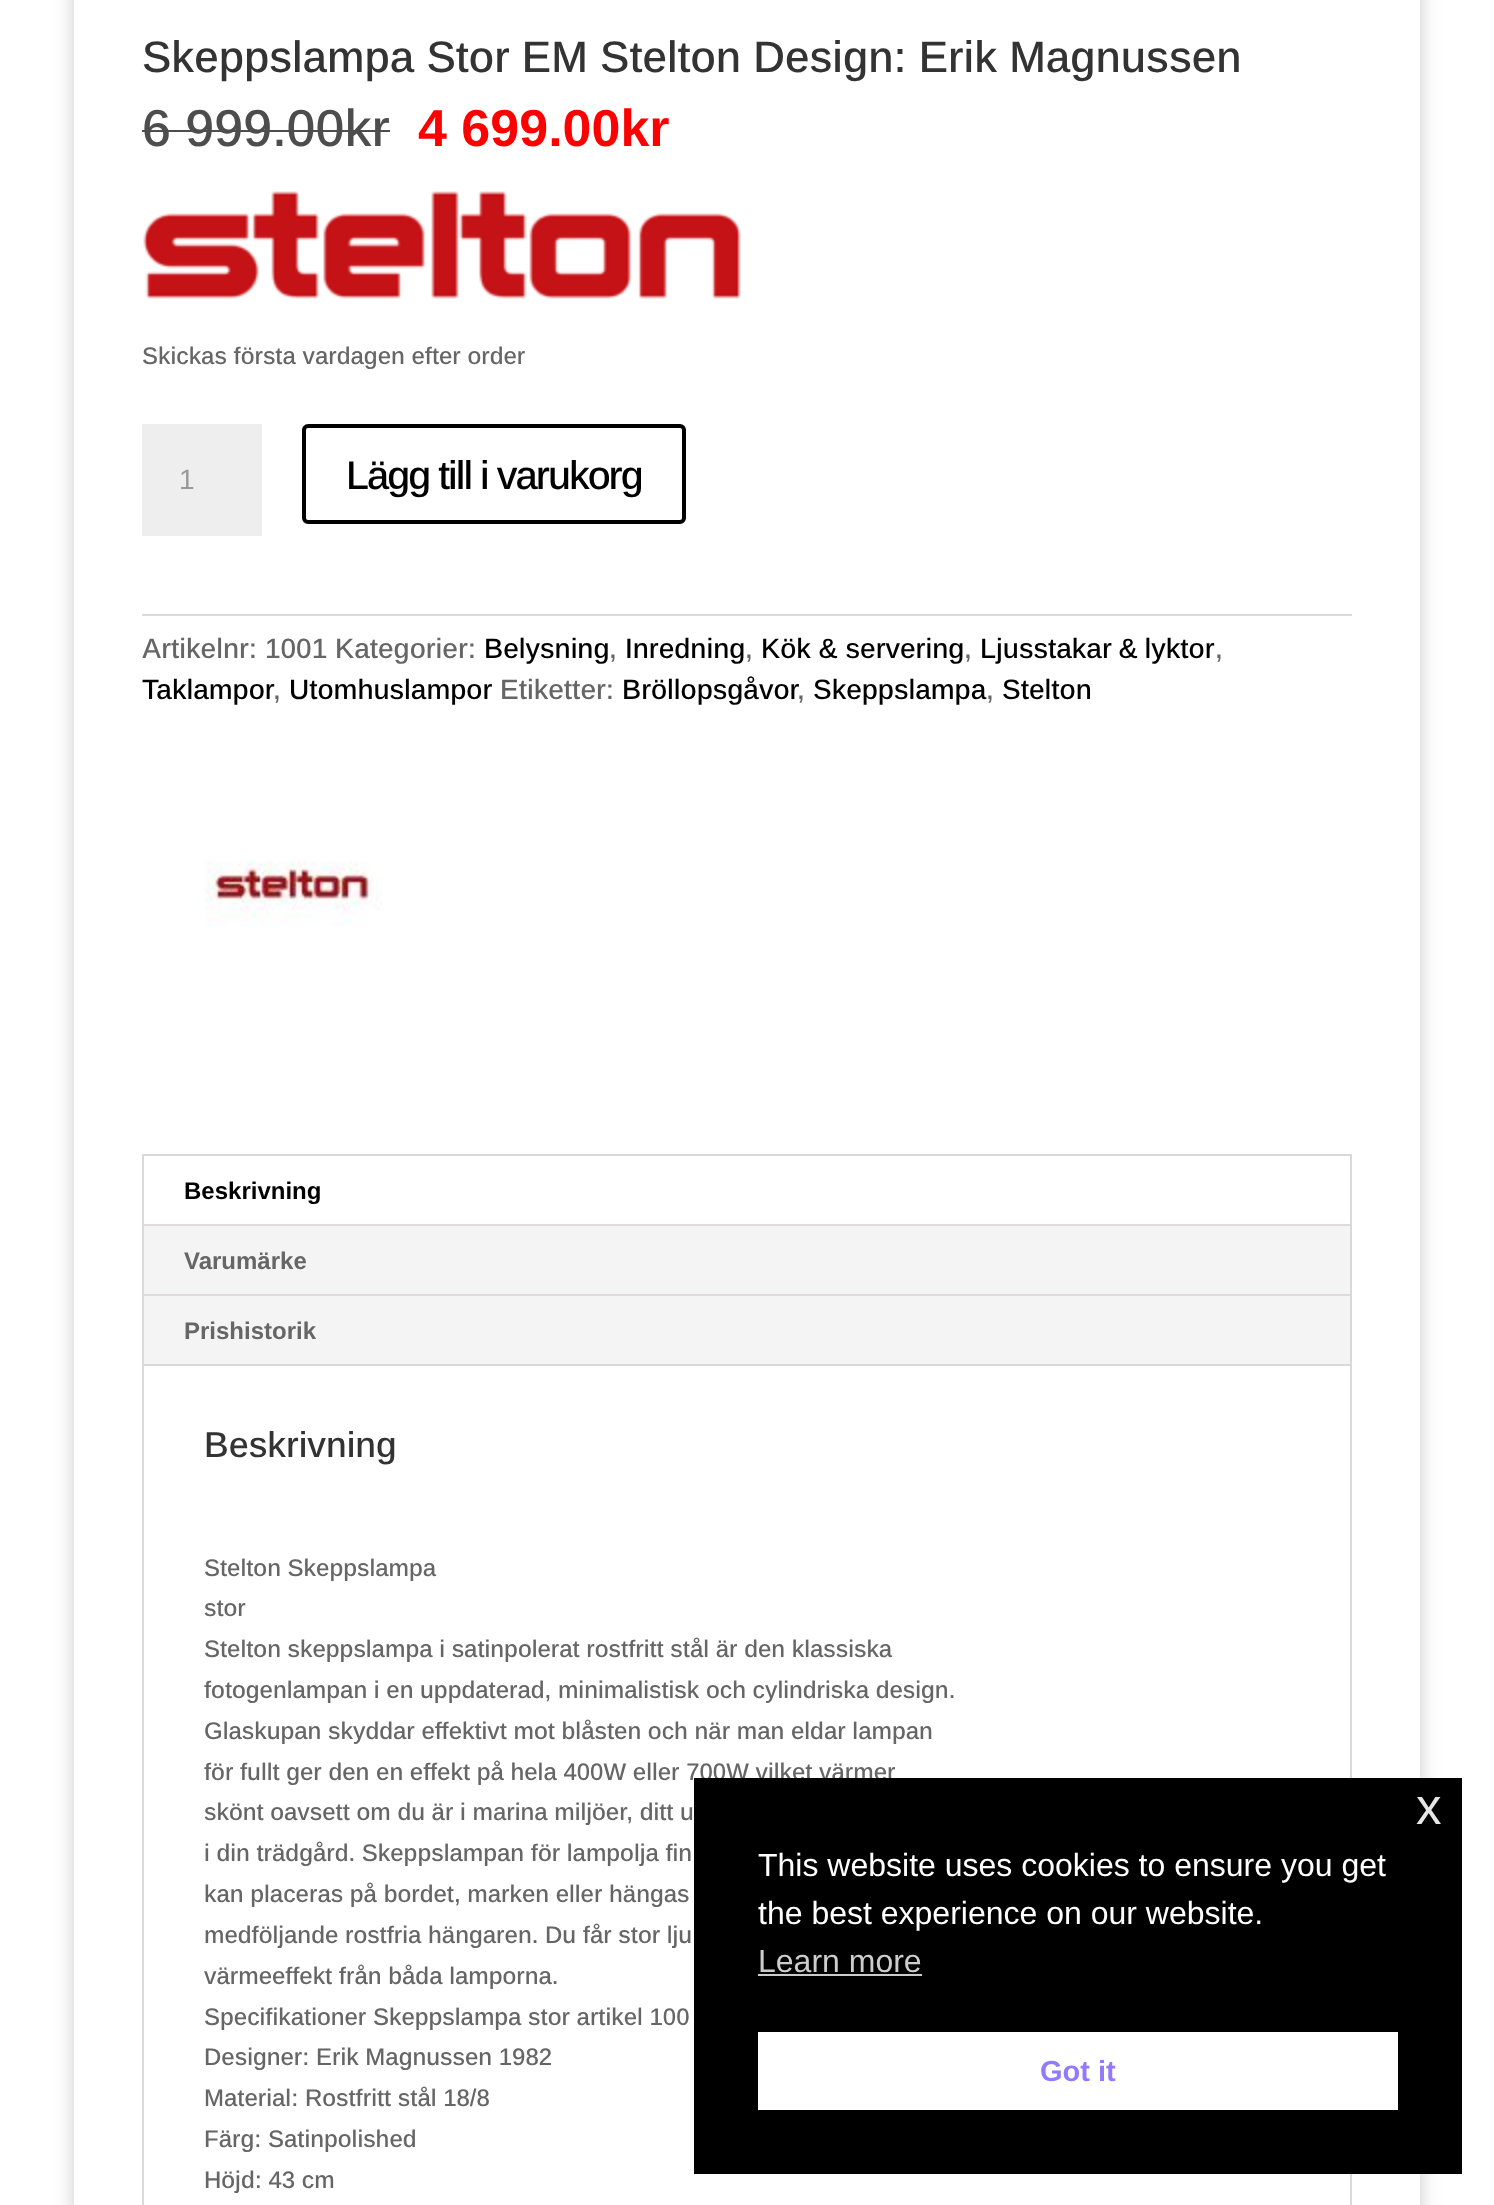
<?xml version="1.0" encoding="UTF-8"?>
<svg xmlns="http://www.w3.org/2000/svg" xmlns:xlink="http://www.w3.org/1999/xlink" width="1494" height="2205">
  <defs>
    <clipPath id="clip1"><path d="M 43 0 h 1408 v 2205 h -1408 z m 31 -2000 h 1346 v 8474 h -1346 z" clip-rule="evenodd" /></clipPath>
  </defs>
  <rect width="100%" height="100%" fill="#ffffff" />
  <g clip-path="url(#clip1)">
    <rect x="74" y="-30" width="1346" height="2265" fill="#000000" fill-opacity="0.2" filter="blur(10px)" />
  </g>
  <rect x="142" y="130" width="248" height="2" fill="#4d4d4d" />
  <image x="143" y="191" width="598" height="108" xlink:href="image1.png" />
  <rect x="142" y="424" width="120" height="112" fill="#eeeeee" />
  <rect x="304" y="426" width="380" height="96" rx="4" fill="none" stroke="#000000" stroke-width="4" />
  <rect x="142" y="614" width="1210" height="2" fill="#dadada" />
  <image x="205" y="860" width="177" height="67" xlink:href="image2.png" />
  <rect x="143" y="1155" width="1208" height="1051" fill="none" stroke="#d9d9d9" stroke-width="2" />
  <rect x="144" y="1226" width="1206" height="138" fill="#f4f4f4" />
  <rect x="144" y="1224" width="1206" height="2" fill="#e0dadf" />
  <rect x="144" y="1294" width="1206" height="2" fill="#e0dadf" />
  <rect x="144" y="1364" width="1206" height="2" fill="#d9d9d9" />
  <text x="142" y="72" style="font-family: Arimo; font-size: 44px; font-weight: 500; fill: #333333">Skeppslampa Stor EM Stelton Design: Erik Magnussen</text>
  <text x="142" y="146" style="font-family: Arimo; font-size: 52px; font-weight: 500; fill: #4d4d4d">6 999.00kr</text>
  <text x="418" y="146" style="font-family: Arimo; font-size: 52px; font-weight: bold; fill: #ff0000">4 699.00kr</text>
  <text x="142" y="364" style="font-family: Arimo; font-size: 24px; font-weight: 500; fill: #666666">Skickas första vardagen efter order</text>
  <text x="179" y="489" style="font-family: Arimo; font-size: 28px; fill: #999999">1</text>
  <text x="346" y="489" style="font-family: Arimo; font-size: 40px; font-weight: 500; letter-spacing: -2px; fill: #000000">Lägg till i varukorg</text>
  <text x="142" y="658" style="font-family: Arimo; font-size: 28px; font-weight: 500; fill: #666666">Artikelnr: 1001 Kategorier:</text>
  <text x="484" y="658" style="font-family: Arimo; font-size: 28px; font-weight: 500; fill: #000000">Belysning</text>
  <text x="609" y="658" style="font-family: Arimo; font-size: 28px; font-weight: 500; fill: #666666">,</text>
  <text x="625" y="658" style="font-family: Arimo; font-size: 28px; font-weight: 500; fill: #000000">Inredning</text>
  <text x="745" y="658" style="font-family: Arimo; font-size: 28px; font-weight: 500; fill: #666666">,</text>
  <text x="761" y="658" style="font-family: Arimo; font-size: 28px; font-weight: 500; fill: #000000">Kök &amp; servering</text>
  <text x="964" y="658" style="font-family: Arimo; font-size: 28px; font-weight: 500; fill: #666666">,</text>
  <text x="980" y="658" word-spacing="-1" style="font-family: Arimo; font-size: 28px; font-weight: 500; fill: #000000">Ljusstakar &amp; lyktor</text>
  <text x="1215" y="658" style="font-family: Arimo; font-size: 28px; font-weight: 500; fill: #666666">,</text>
  <text x="142" y="699" style="font-family: Arimo; font-size: 28px; font-weight: 500; fill: #000000">Taklampor</text>
  <text x="273" y="699" style="font-family: Arimo; font-size: 28px; font-weight: 500; fill: #666666">,</text>
  <text x="289" y="699" style="font-family: Arimo; font-size: 28px; font-weight: 500; fill: #000000">Utomhuslampor</text>
  <text x="500" y="699" style="font-family: Arimo; font-size: 28px; font-weight: 500; fill: #666666">Etiketter:</text>
  <text x="622" y="699" style="font-family: Arimo; font-size: 28px; font-weight: 500; fill: #000000">Bröllopsgåvor</text>
  <text x="797" y="699" style="font-family: Arimo; font-size: 28px; font-weight: 500; fill: #666666">,</text>
  <text x="813" y="699" style="font-family: Arimo; font-size: 28px; font-weight: 500; fill: #000000">Skeppslampa</text>
  <text x="986" y="699" style="font-family: Arimo; font-size: 28px; font-weight: 500; fill: #666666">,</text>
  <text x="1002" y="699" style="font-family: Arimo; font-size: 28px; font-weight: 500; fill: #000000">Stelton</text>
  <text x="184" y="1199" style="font-family: Arimo; font-size: 24px; font-weight: bold; fill: #000000">Beskrivning</text>
  <text x="184" y="1269" style="font-family: Arimo; font-size: 24px; font-weight: bold; fill: #666666">Varumärke</text>
  <text x="184" y="1339" style="font-family: Arimo; font-size: 24px; font-weight: bold; fill: #666666">Prishistorik</text>
  <text x="204" y="1457" style="font-family: Arimo; font-size: 36px; font-weight: 500; fill: #333333">Beskrivning</text>
  <text x="204" y="1576" style="font-family: Arimo; font-size: 24px; font-weight: 500; fill: #666666">Stelton Skeppslampa</text>
  <text x="204" y="1616" style="font-family: Arimo; font-size: 24px; font-weight: 500; fill: #666666">stor</text>
  <text x="204" y="1657" style="font-family: Arimo; font-size: 24px; font-weight: 500; fill: #666666">Stelton skeppslampa i satinpolerat rostfritt stål är den klassiska</text>
  <text x="204" y="1698" style="font-family: Arimo; font-size: 24px; font-weight: 500; fill: #666666">fotogenlampan i en uppdaterad, minimalistisk och cylindriska design.</text>
  <text x="204" y="1739" style="font-family: Arimo; font-size: 24px; font-weight: 500; fill: #666666">Glaskupan skyddar effektivt mot blåsten och när man eldar lampan</text>
  <text x="204" y="1780" style="font-family: Arimo; font-size: 24px; font-weight: 500; fill: #666666">för fullt ger den en effekt på hela 400W eller 700W vilket värmer</text>
  <text x="204" y="1820" style="font-family: Arimo; font-size: 24px; font-weight: 500; fill: #666666">skönt oavsett om du är i marina miljöer, ditt u</text>
  <text x="204" y="1861" style="font-family: Arimo; font-size: 24px; font-weight: 500; fill: #666666">i din trädgård. Skeppslampan för lampolja fin</text>
  <text x="204" y="1902" style="font-family: Arimo; font-size: 24px; font-weight: 500; fill: #666666">kan placeras på bordet, marken eller hängas</text>
  <text x="204" y="1943" style="font-family: Arimo; font-size: 24px; font-weight: 500; fill: #666666">medföljande rostfria hängaren. Du får stor lju</text>
  <text x="204" y="1984" style="font-family: Arimo; font-size: 24px; font-weight: 500; fill: #666666">värmeeffekt från båda lamporna.</text>
  <text x="204" y="2025" style="font-family: Arimo; font-size: 24px; font-weight: 500; fill: #666666">Specifikationer Skeppslampa stor artikel 100</text>
  <text x="204" y="2065" style="font-family: Arimo; font-size: 24px; font-weight: 500; fill: #666666">Designer: Erik Magnussen 1982</text>
  <text x="204" y="2106" style="font-family: Arimo; font-size: 24px; font-weight: 500; fill: #666666">Material: Rostfritt stål 18/8</text>
  <text x="204" y="2147" style="font-family: Arimo; font-size: 24px; font-weight: 500; fill: #666666">Färg: Satinpolished</text>
  <text x="204" y="2188" style="font-family: Arimo; font-size: 24px; font-weight: 500; fill: #666666">Höjd: 43 cm</text>
  <rect x="694" y="1778" width="768" height="396" fill="#000000" />
  <text x="1416" y="1824" style="font-family: Liberation Sans; font-size: 51px; fill: #e6e6e6">x</text>
  <text x="758" y="1876" style="font-family: Liberation Sans; font-size: 32px; fill: #ffffff">This website uses cookies to ensure you get</text>
  <text x="758" y="1924" style="font-family: Liberation Sans; font-size: 32px; fill: #ffffff">the best experience on our website.</text>
  <text x="758" y="1972" style="font-family: Liberation Sans; font-size: 32px; fill: #cccccc">Learn more</text>
  <rect x="758" y="1974" width="164" height="2" fill="#cccccc" />
  <rect x="758" y="2032" width="640" height="78" fill="#ffffff" />
  <text x="1040" y="2081" style="font-family: Liberation Sans; font-size: 29px; font-weight: bold; fill: #937afc">Got it</text>
</svg>
